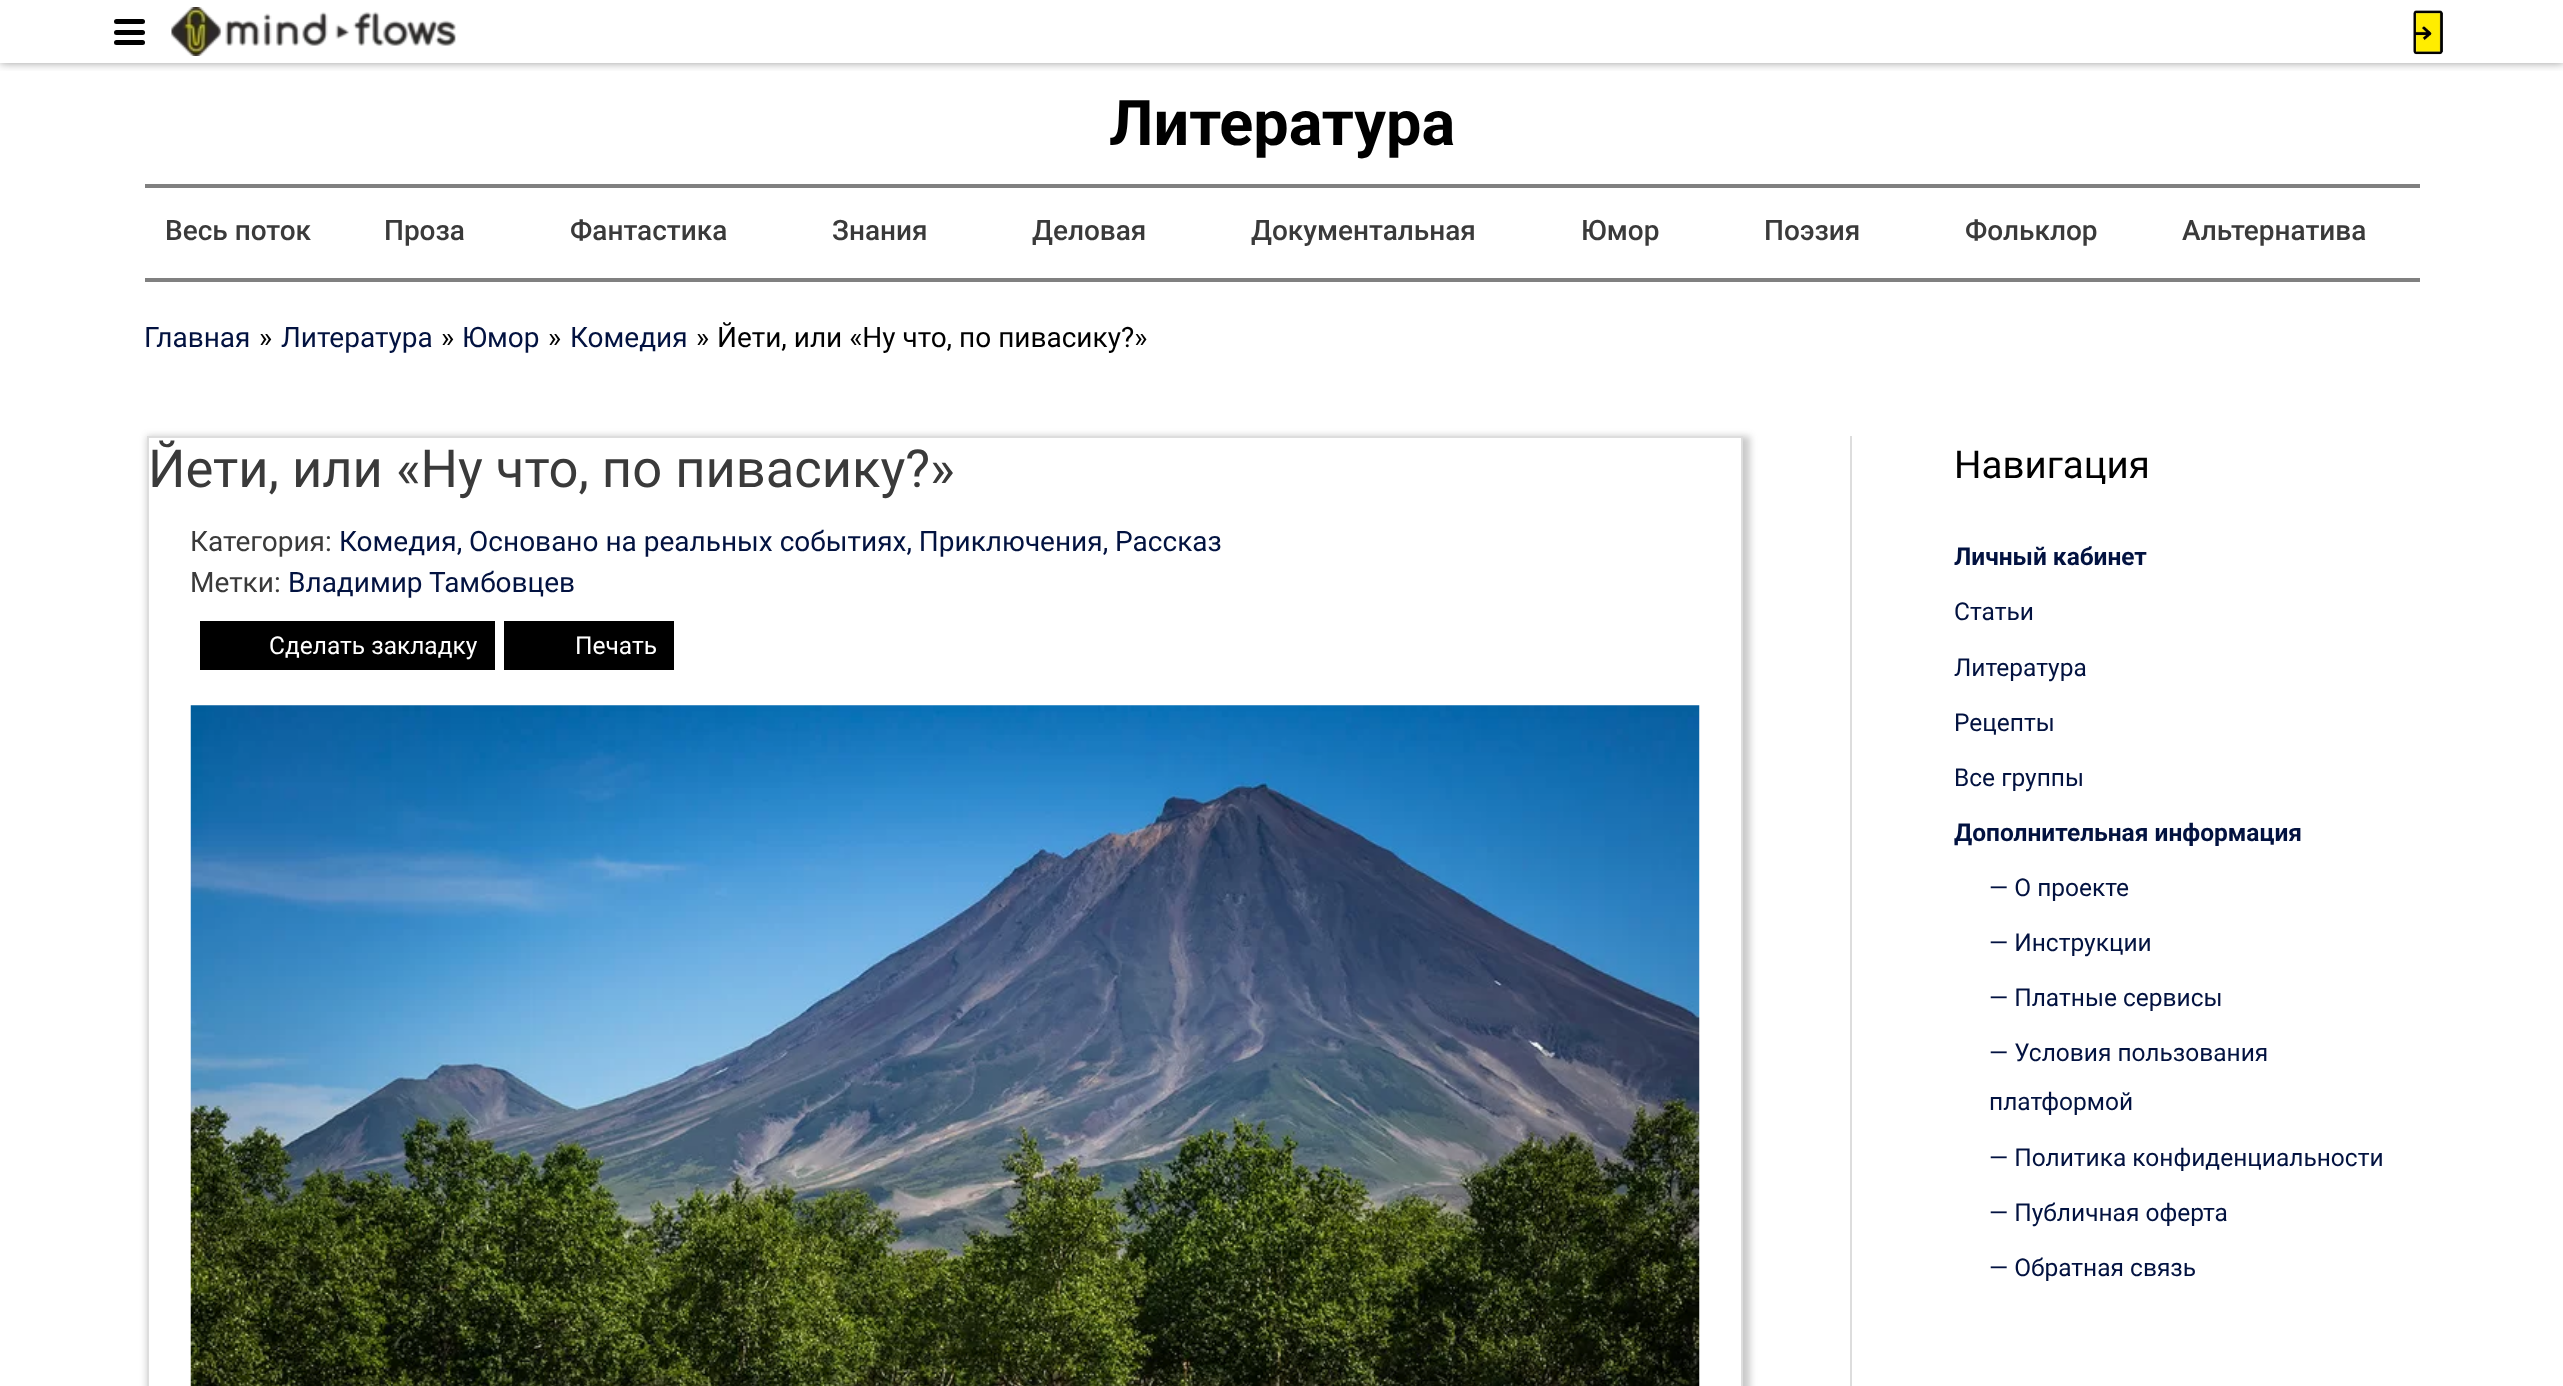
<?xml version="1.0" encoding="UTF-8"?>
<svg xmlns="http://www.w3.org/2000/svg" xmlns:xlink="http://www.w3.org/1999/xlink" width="2563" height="1386">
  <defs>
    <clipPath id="clip1"><rect x="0" y="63" width="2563" height="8" /></clipPath>
    <clipPath id="clip2"><path d="M 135 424 h 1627 v 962 h -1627 z m 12 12 h 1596 v 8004 h -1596 z" clip-rule="evenodd" /></clipPath>
  </defs>
  <rect width="100%" height="100%" fill="#ffffff" />
  <g clip-path="url(#clip1)">
    <rect width="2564" height="63" fill="#000000" fill-opacity="0.4" filter="blur(5px)" />
  </g>
  <rect x="114" y="30" width="31" height="5" rx="2.5" fill="#000000" />
  <rect x="114" y="19" width="31" height="5" rx="2.5" fill="#000000" />
  <rect x="114" y="40" width="31" height="5" rx="2.5" fill="#000000" />
  <image x="171" y="7" width="285" height="49" xlink:href="image1.png" />
  <image x="2413" y="10" width="30" height="45" xlink:href="image2.png" />
  <rect x="145" y="184" width="2275" height="4" fill="#808080" />
  <rect x="145" y="278" width="2275" height="4" fill="#808080" />
  <rect x="1850" y="436" width="2" height="950" fill="#dddddd" />
  <g clip-path="url(#clip2)">
    <rect x="147" y="436" width="1603" height="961" fill="#505050" fill-opacity="0.3" filter="blur(3.5px)" />
  </g>
  <rect x="148" y="437" width="1594" height="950" fill="none" stroke="#dddddd" stroke-width="2" />
  <rect x="200" y="621" width="295" height="49" fill="#000000" />
  <rect x="504" y="621" width="170" height="49" fill="#000000" />
  <image x="190" y="705" width="1510" height="681" xlink:href="image3.png" />
  <text x="1109" y="145" style="font-family: Roboto; font-size: 63px; font-weight: bold; fill: #000000">Литература</text>
  <text x="165" y="240" style="font-family: Roboto; font-size: 28px; font-weight: 500; fill: #3a3a3a">Весь поток</text>
  <text x="384" y="240" style="font-family: Roboto; font-size: 28px; font-weight: 500; fill: #3a3a3a">Проза</text>
  <text x="570" y="240" style="font-family: Roboto; font-size: 28px; font-weight: 500; fill: #3a3a3a">Фантастика</text>
  <text x="832" y="240" style="font-family: Roboto; font-size: 28px; font-weight: 500; fill: #3a3a3a">Знания</text>
  <text x="1032" y="240" style="font-family: Roboto; font-size: 28px; font-weight: 500; fill: #3a3a3a">Деловая</text>
  <text x="1251" y="240" style="font-family: Roboto; font-size: 28px; font-weight: 500; fill: #3a3a3a">Документальная</text>
  <text x="1581" y="240" style="font-family: Roboto; font-size: 28px; font-weight: 500; fill: #3a3a3a">Юмор</text>
  <text x="1764" y="240" style="font-family: Roboto; font-size: 28px; font-weight: 500; fill: #3a3a3a">Поэзия</text>
  <text x="1965" y="240" style="font-family: Roboto; font-size: 28px; font-weight: 500; fill: #3a3a3a">Фольклор</text>
  <text x="2182" y="240" style="font-family: Roboto; font-size: 28px; font-weight: 500; fill: #3a3a3a">Альтернатива</text>
  <text x="144" y="347" style="font-family: Roboto; font-size: 28px; fill: #021240">Главная</text>
  <text x="259" y="347" style="font-family: Roboto; font-size: 28px; fill: #000000">»</text>
  <text x="281" y="347" style="font-family: Roboto; font-size: 28px; fill: #021240">Литература</text>
  <text x="441" y="347" style="font-family: Roboto; font-size: 28px; fill: #000000">»</text>
  <text x="462" y="347" style="font-family: Roboto; font-size: 28px; fill: #021240">Юмор</text>
  <text x="548" y="347" style="font-family: Roboto; font-size: 28px; fill: #000000">»</text>
  <text x="570" y="347" style="font-family: Roboto; font-size: 28px; fill: #021240">Комедия</text>
  <text x="696" y="347" style="font-family: Roboto; font-size: 28px; fill: #000000">»</text>
  <text x="717" y="347" style="font-family: Roboto; font-size: 28px; fill: #000000">Йети, или «Ну что, по пивасику?»</text>
  <text x="148" y="487" style="font-family: Roboto; font-size: 52.5px; fill: #3a3a3a">Йети, или «Ну что, по пивасику?»</text>
  <text x="190" y="551" style="font-family: Roboto; font-size: 28px; fill: #3a3a3a">Категория:</text>
  <text x="339" y="551" style="font-family: Roboto; font-size: 28px; fill: #021240">Комедия, Основано на реальных событиях, Приключения, Рассказ</text>
  <text x="190" y="592" style="font-family: Roboto; font-size: 28px; fill: #3a3a3a">Метки:</text>
  <text x="288" y="592" style="font-family: Roboto; font-size: 28px; fill: #021240">Владимир Тамбовцев</text>
  <text x="269" y="654" style="font-family: Roboto; font-size: 24.5px; fill: #ffffff">Сделать закладку</text>
  <text x="575" y="654" style="font-family: Roboto; font-size: 24.5px; fill: #ffffff">Печать</text>
  <text x="1954" y="478" style="font-family: Roboto; font-size: 38.5px; fill: #000000">Навигация</text>
  <text x="1954" y="565" style="font-family: Roboto; font-size: 24.5px; font-weight: bold; fill: #021240">Личный кабинет</text>
  <text x="1954" y="620" style="font-family: Roboto; font-size: 24.5px; fill: #021240">Статьи</text>
  <text x="1954" y="676" style="font-family: Roboto; font-size: 24.5px; fill: #021240">Литература</text>
  <text x="1954" y="731" style="font-family: Roboto; font-size: 24.5px; fill: #021240">Рецепты</text>
  <text x="1954" y="786" style="font-family: Roboto; font-size: 24.5px; fill: #021240">Все группы</text>
  <text x="1954" y="841" style="font-family: Roboto; font-size: 24.5px; font-weight: bold; fill: #021240">Дополнительная информация</text>
  <text x="1989" y="896" style="font-family: Roboto; font-size: 24.5px; fill: #021240">— О проекте</text>
  <text x="1989" y="951" style="font-family: Roboto; font-size: 24.5px; fill: #021240">— Инструкции</text>
  <text x="1989" y="1006" style="font-family: Roboto; font-size: 24.5px; fill: #021240">— Платные сервисы</text>
  <text x="1989" y="1061" style="font-family: Roboto; font-size: 24.5px; fill: #021240">— Условия пользования</text>
  <text x="1989" y="1110" style="font-family: Roboto; font-size: 24.5px; fill: #021240">платформой</text>
  <text x="1989" y="1166" style="font-family: Roboto; font-size: 24.5px; fill: #021240">— Политика конфиденциальности</text>
  <text x="1989" y="1221" style="font-family: Roboto; font-size: 24.5px; fill: #021240">— Публичная оферта</text>
  <text x="1989" y="1276" style="font-family: Roboto; font-size: 24.5px; fill: #021240">— Обратная связь</text>
</svg>
